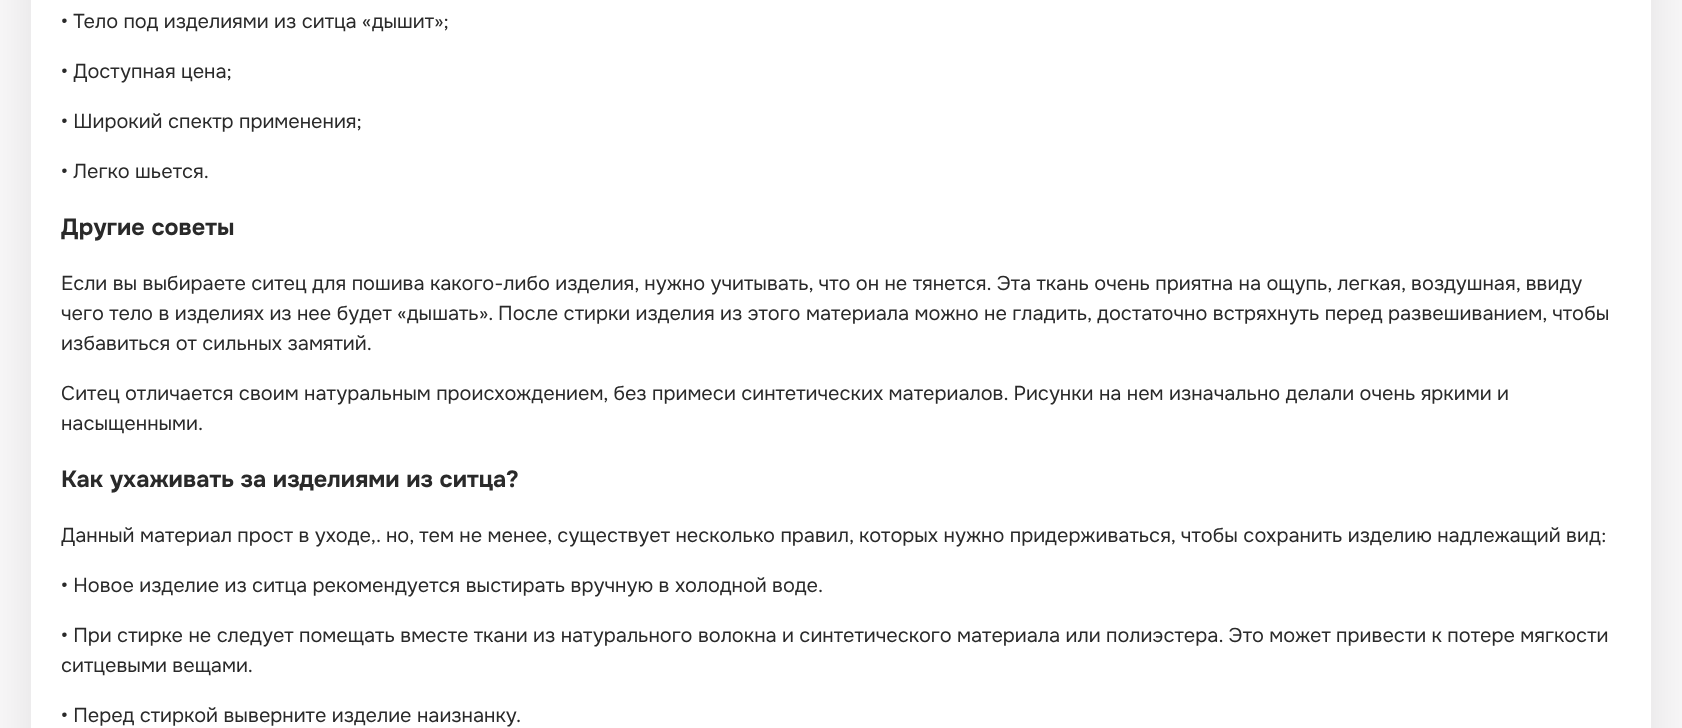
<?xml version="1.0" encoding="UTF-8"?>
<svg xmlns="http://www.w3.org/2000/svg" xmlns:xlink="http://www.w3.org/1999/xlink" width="1682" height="728">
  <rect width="100%" height="100%" fill="#f8f7f8" />
  <rect x="31" y="-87" width="1620" height="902" rx="15" fill="#000000" fill-opacity="0.09" filter="blur(24px)" />
  <rect x="31" width="1620" height="728" fill="#ffffff" />
  <text x="61" y="28" style="font-family: Onest; font-size: 20px; fill: #2a2a2a">• Тело под изделиями из ситца «дышит»;</text>
  <text x="61" y="78" style="font-family: Onest; font-size: 20px; fill: #2a2a2a">• Доступная цена;</text>
  <text x="61" y="128" style="font-family: Onest; font-size: 20px; fill: #2a2a2a">• Широкий спектр применения;</text>
  <text x="61" y="178" style="font-family: Onest; font-size: 20px; fill: #2a2a2a">• Легко шьется.</text>
  <text x="61" y="235" style="font-family: Onest; font-size: 23.4px; font-weight: bold; fill: #2a2a2a">Другие советы</text>
  <text x="61" y="290" style="font-family: Onest; font-size: 20px; fill: #2a2a2a">Если вы выбираете ситец для пошива какого-либо изделия, нужно учитывать, что он не тянется. Эта ткань очень приятна на ощупь, легкая, воздушная, ввиду</text>
  <text x="61" y="320" style="font-family: Onest; font-size: 20px; fill: #2a2a2a">чего тело в изделиях из нее будет «дышать». После стирки изделия из этого материала можно не гладить, достаточно встряхнуть перед развешиванием, чтобы</text>
  <text x="61" y="350" style="font-family: Onest; font-size: 20px; fill: #2a2a2a">избавиться от сильных замятий.</text>
  <text x="61" y="400" style="font-family: Onest; font-size: 20px; fill: #2a2a2a">Ситец отличается своим натуральным происхождением, без примеси синтетических материалов. Рисунки на нем изначально делали очень яркими и</text>
  <text x="61" y="430" style="font-family: Onest; font-size: 20px; fill: #2a2a2a">насыщенными.</text>
  <text x="61" y="487" style="font-family: Onest; font-size: 23.4px; font-weight: bold; fill: #2a2a2a">Как ухаживать за изделиями из ситца?</text>
  <text x="61" y="542" style="font-family: Onest; font-size: 20px; fill: #2a2a2a">Данный материал прост в уходе,. но, тем не менее, существует несколько правил, которых нужно придерживаться, чтобы сохранить изделию надлежащий вид:</text>
  <text x="61" y="592" style="font-family: Onest; font-size: 20px; fill: #2a2a2a">• Новое изделие из ситца рекомендуется выстирать вручную в холодной воде.</text>
  <text x="61" y="642" style="font-family: Onest; font-size: 20px; fill: #2a2a2a">• При стирке не следует помещать вместе ткани из натурального волокна и синтетического материала или полиэстера. Это может привести к потере мягкости</text>
  <text x="61" y="672" style="font-family: Onest; font-size: 20px; fill: #2a2a2a">ситцевыми вещами.</text>
  <text x="61" y="722" style="font-family: Onest; font-size: 20px; fill: #2a2a2a">• Перед стиркой выверните изделие наизнанку.</text>
</svg>
